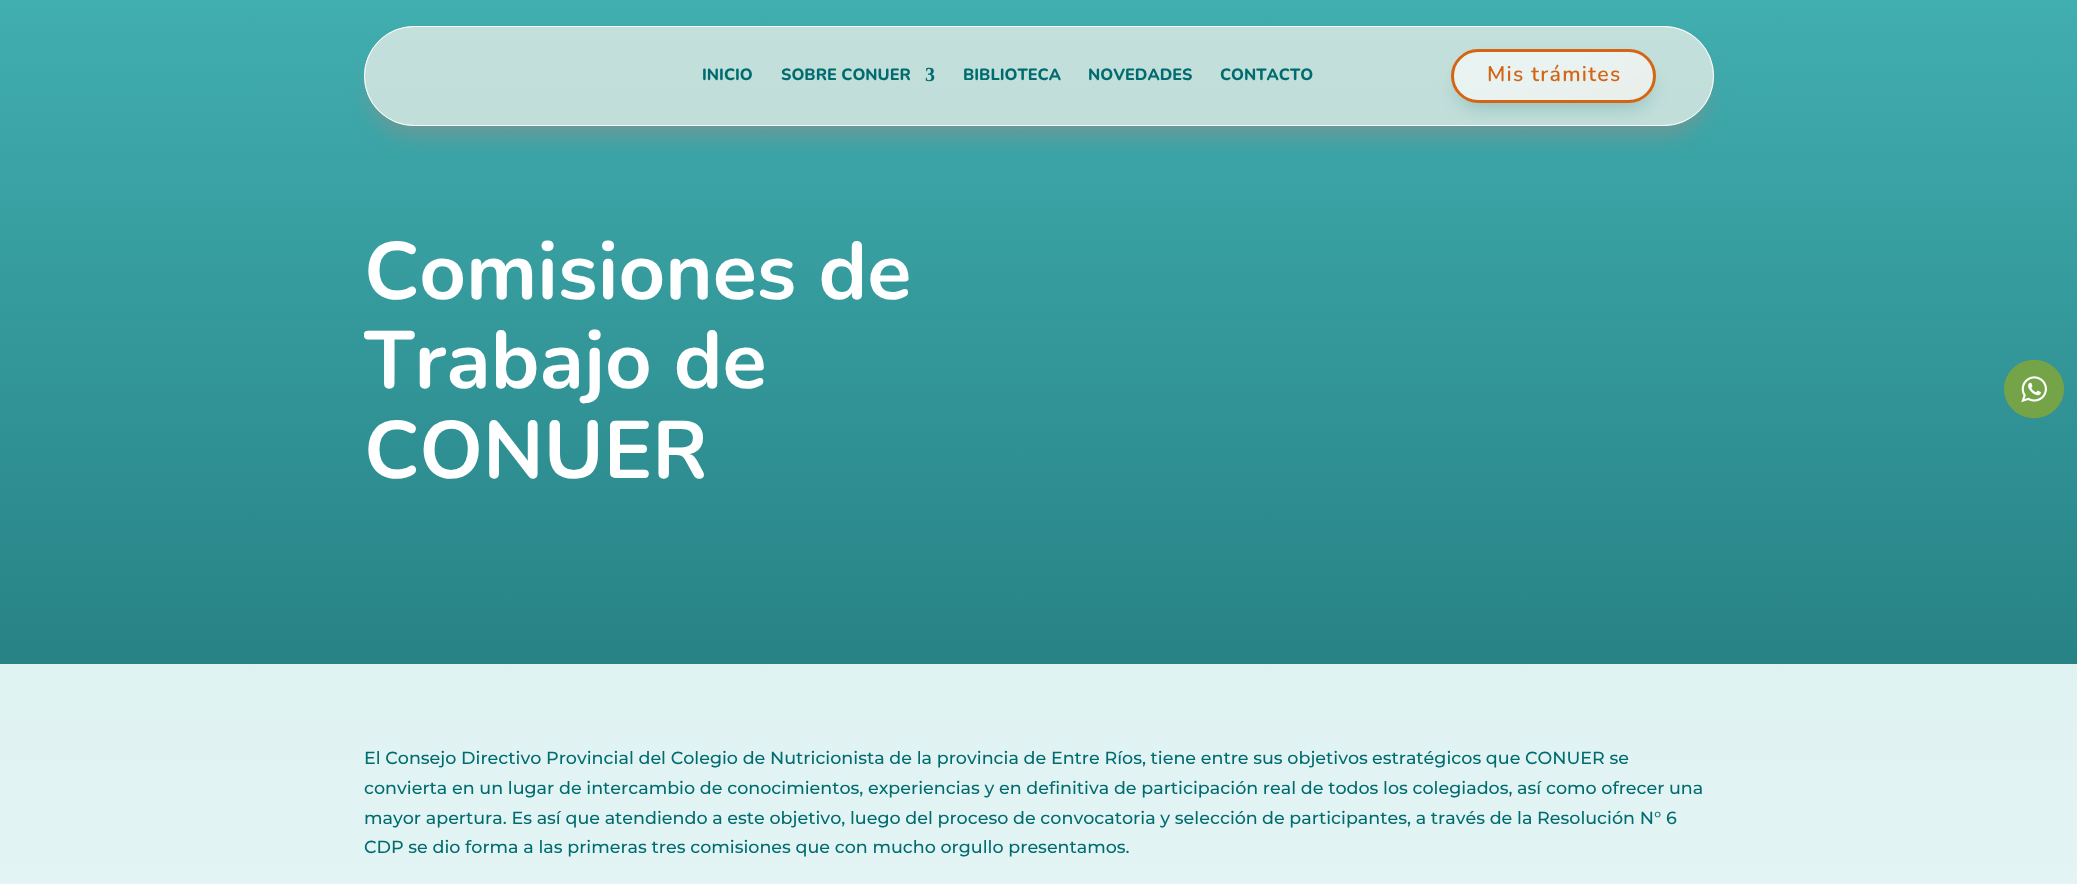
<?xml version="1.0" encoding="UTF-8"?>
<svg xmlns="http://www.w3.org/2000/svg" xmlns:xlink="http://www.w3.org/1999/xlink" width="2077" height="884">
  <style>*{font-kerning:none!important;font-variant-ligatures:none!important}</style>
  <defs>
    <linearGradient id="g1" gradientUnits="userSpaceOnUse" x1="1039" y1="0" x2="1039" y2="664"><stop offset="0" stop-color="#41aeb0" /><stop offset="1" stop-color="#278285" /></linearGradient>
    <clipPath id="clip1"><path d="M 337 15 h 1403 v 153 h -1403 z m 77 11 h 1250 c 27.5 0 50 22.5 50 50 c 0 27.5 -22.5 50 -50 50 h -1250 c -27.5 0 -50 -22.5 -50 -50 c 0 -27.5 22.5 -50 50 -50 z" clip-rule="evenodd" /></clipPath>
    <clipPath id="clip2"><path d="M 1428 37 h 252 v 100 h -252 z m 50 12 h 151 c 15 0 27 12 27 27 c 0 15 -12 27 -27 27 h -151 c -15 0 -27 -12 -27 -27 c 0 -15 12 -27 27 -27 z" clip-rule="evenodd" /></clipPath>
    <clipPath id="clip3"><rect x="1451" y="49" width="205" height="54" rx="27" /></clipPath>
    <linearGradient id="g2" gradientUnits="userSpaceOnUse" x1="1534" y1="22" x2="1573" y2="129"><stop offset="0.37" stop-color="#ffffff" stop-opacity="0.63" /><stop offset="1" stop-color="#f2f1ec" stop-opacity="0.8" /></linearGradient>
    <linearGradient id="g3" gradientUnits="userSpaceOnUse" x1="1039" y1="664" x2="1039" y2="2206"><stop offset="0" stop-color="#dff2f2" /><stop offset="1" stop-color="#ffffff" /></linearGradient>
    <clipPath id="clip4"><rect x="364" y="228" width="1350" height="293" rx="25" /></clipPath>
  </defs>
  <rect width="100%" height="100%" fill="#ffffff" />
  <rect width="2077" height="664" fill="url(#g1)" />
  <g clip-path="url(#clip1)">
    <rect x="371" y="49" width="1335" height="85" rx="42.5" fill="#ec7669" fill-opacity="0.31" filter="blur(11px)" />
  </g>
  <rect x="364" y="26" width="1350" height="100" rx="50" fill="#f2f1eb" fill-opacity="0.74" />
  <rect x="364.5" y="26.5" width="1349" height="99" rx="49.5" fill="none" stroke="#ffffff" stroke-opacity="0.93" />
  <g clip-path="url(#clip2)">
    <rect x="1459" y="68" width="190" height="38" rx="19" fill="#016c6f" fill-opacity="0.28" filter="blur(10px)" />
  </g>
  <g clip-path="url(#clip3)">
    <rect x="1454" y="51" width="200" height="49" fill="url(#g2)" />
  </g>
  <rect x="1452.5" y="50.5" width="202" height="51" rx="25.5" fill="none" stroke="#d46514" stroke-width="3" />
  <rect y="664" width="2077" height="220" fill="url(#g3)" />
  <rect x="2004.5" y="360.5" width="59" height="57" rx="28.5" fill="#7ca53f" fill-opacity="0.9" stroke="#7ca53f" />
  <image x="2021" y="376" width="26" height="27" xlink:href="image1.png" />
  <text x="702" y="80" style="font-family: Nunito; font-size: 16.25px; font-weight: 800; fill: #016c6f">INICIO</text>
  <text x="781" y="80" style="font-family: Nunito; font-size: 16.25px; font-weight: 800; fill: #016c6f">SOBRE CONUER</text>
  <text x="925" y="81" style="font-family: Liberation Serif; font-size: 20px; font-weight: bold; fill: #016c6f">3</text>
  <text x="963" y="80" style="font-family: Nunito; font-size: 16.25px; font-weight: 800; fill: #016c6f">BIBLIOTECA</text>
  <text x="1088" y="80" style="font-family: Nunito; font-size: 16.25px; font-weight: 800; fill: #016c6f">NOVEDADES</text>
  <text x="1220" y="80" style="font-family: Nunito; font-size: 16.25px; font-weight: 800; fill: #016c6f">CONTACTO</text>
  <text x="1487" y="81" style="font-family: Nunito; font-size: 21.25px; font-weight: 600; letter-spacing: 1.25px; fill: #d46514">Mis trámites</text>
  <text x="364" y="299" style="font-family: Nunito; font-size: 81.25px; font-weight: bold; fill: #ffffff">Comisiones de</text>
  <g clip-path="url(#clip4)">
    <text x="364" y="388" style="font-family: Nunito; font-size: 81.25px; font-weight: bold; fill: #ffffff">Trabajo de</text>
  </g>
  <text x="364" y="478" style="font-family: Nunito; font-size: 81.25px; font-weight: bold; fill: #ffffff">CONUER</text>
  <text x="364" y="764" style="font-family: Montserrat; font-size: 17.5px; font-weight: 500; fill: #016c6f">El Consejo Directivo Provincial del Colegio de Nutricionista de la provincia de Entre Ríos, tiene entre sus objetivos</text>
  <text x="1372" y="764" style="font-family: Montserrat; font-size: 17.5px; font-weight: 500; fill: #016c6f">estratégicos que CONUER se</text>
  <text x="364" y="794" style="font-family: Montserrat; font-size: 17.5px; font-weight: 500; fill: #016c6f">convierta en un lugar de intercambio de conocimientos, experiencias y en definitiva de participación real de todos los colegiados, así como ofrecer</text>
  <text x="1669" y="794" style="font-family: Montserrat; font-size: 17.5px; font-weight: 500; fill: #016c6f">una</text>
  <text x="364" y="824" style="font-family: Montserrat; font-size: 17.5px; font-weight: 500; fill: #016c6f">mayor apertura. Es así que atendiendo a este objetivo, luego del proceso de convocatoria y selección</text>
  <text x="1262" y="824" style="font-family: Montserrat; font-size: 17.5px; font-weight: 500; fill: #016c6f">de participantes, a través de la Resolución N° 6</text>
  <text x="364" y="853" style="font-family: Montserrat; font-size: 17.5px; font-weight: 500; fill: #016c6f">CDP se dio forma a las primeras tres comisiones que con mucho orgullo presentamos.</text>
</svg>
